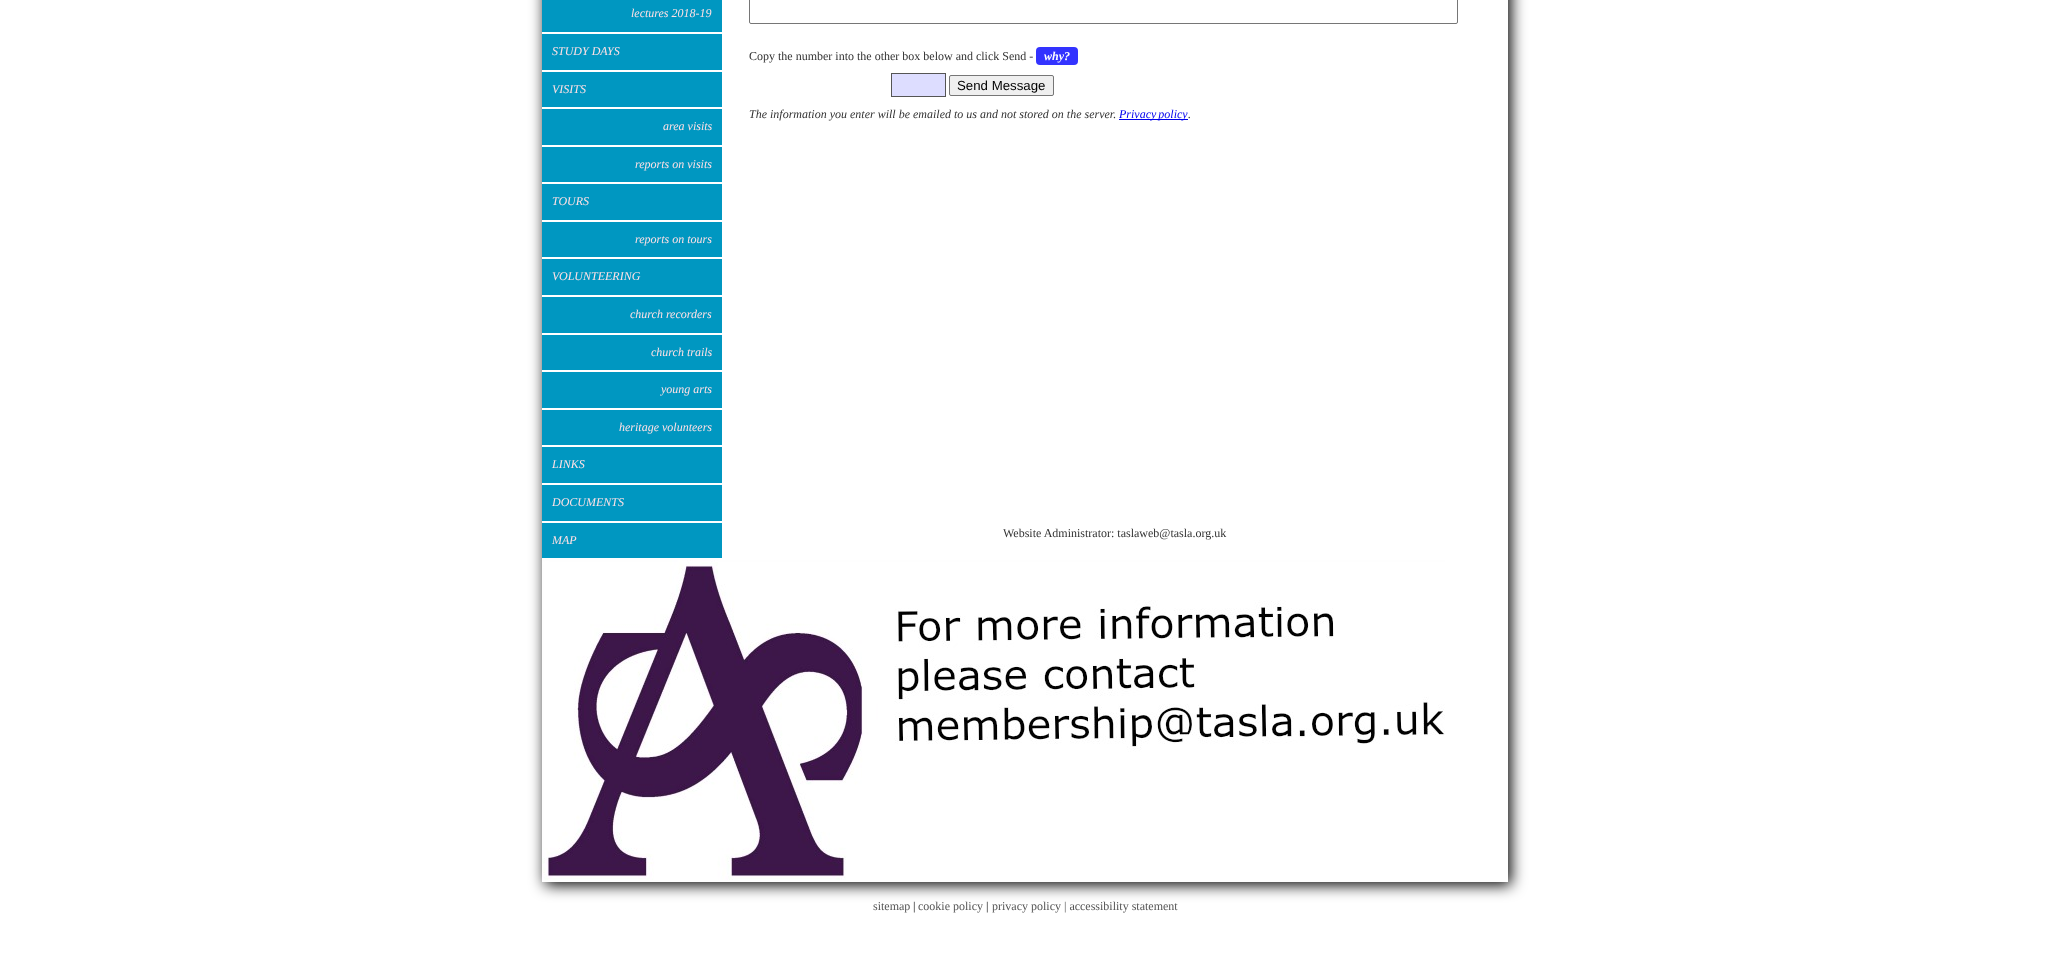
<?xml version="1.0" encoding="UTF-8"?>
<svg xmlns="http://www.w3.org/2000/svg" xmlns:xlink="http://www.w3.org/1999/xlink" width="2050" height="957">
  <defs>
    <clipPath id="clip1"><path d="M 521 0 h 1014 v 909 h -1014 z m 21 -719 h 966 v 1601 h -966 z" clip-rule="evenodd" /></clipPath>
  </defs>
  <rect width="100%" height="100%" fill="#ffffff" />
  <g clip-path="url(#clip1)">
    <rect x="545" y="-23" width="966" height="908" fill="#000000" filter="blur(7.5px)" />
  </g>
  <rect x="542" width="180" height="32" fill="#0097c1" />
  <rect x="542" y="34" width="180" height="36" fill="#0097c1" />
  <rect x="542" y="72" width="180" height="35" fill="#0097c1" />
  <rect x="542" y="109" width="180" height="36" fill="#0097c1" />
  <rect x="542" y="147" width="180" height="35" fill="#0097c1" />
  <rect x="542" y="184" width="180" height="36" fill="#0097c1" />
  <rect x="542" y="222" width="180" height="35" fill="#0097c1" />
  <rect x="542" y="259" width="180" height="36" fill="#0097c1" />
  <rect x="542" y="297" width="180" height="36" fill="#0097c1" />
  <rect x="542" y="335" width="180" height="35" fill="#0097c1" />
  <rect x="542" y="372" width="180" height="36" fill="#0097c1" />
  <rect x="542" y="410" width="180" height="35" fill="#0097c1" />
  <rect x="542" y="447" width="180" height="36" fill="#0097c1" />
  <rect x="542" y="485" width="180" height="36" fill="#0097c1" />
  <rect x="542" y="523" width="180" height="35" fill="#0097c1" />
  <rect x="749.5" y="-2.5" width="708" height="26" rx="1.5" fill="none" stroke="#767676" />
  <rect x="1036" y="47" width="42" height="18" rx="4" fill="#3333ff" />
  <rect x="891.5" y="73.5" width="54" height="23" fill="#ddddff" stroke="#555555" />
  <rect x="949.5" y="75.5" width="104" height="20" rx="1.5" fill="#efefef" stroke="#767676" />
  <rect x="1119" y="119" width="69" height="1" fill="#0000ee" />
  <image x="542" y="560" width="903" height="320" xlink:href="image1.png" />
  <text x="631" y="17" style="font-family: Liberation Serif; font-size: 12px; font-style: italic; fill: #ffe1e5">lectures 2018-19</text>
  <text x="552" y="55" style="font-family: Liberation Serif; font-size: 12px; font-style: italic; fill: #ffe1e5">STUDY DAYS</text>
  <text x="552" y="93" style="font-family: Liberation Serif; font-size: 12px; font-style: italic; fill: #ffe1e5">VISITS</text>
  <text x="663" y="130" style="font-family: Liberation Serif; font-size: 12px; font-style: italic; fill: #ffe1e5">area visits</text>
  <text x="635" y="168" style="font-family: Liberation Serif; font-size: 12px; font-style: italic; fill: #ffe1e5">reports on visits</text>
  <text x="552" y="205" style="font-family: Liberation Serif; font-size: 12px; font-style: italic; fill: #ffe1e5">TOURS</text>
  <text x="635" y="243" style="font-family: Liberation Serif; font-size: 12px; font-style: italic; fill: #ffe1e5">reports on tours</text>
  <text x="552" y="280" style="font-family: Liberation Serif; font-size: 12px; font-style: italic; fill: #ffe1e5">VOLUNTEERING</text>
  <text x="630" y="318" style="font-family: Liberation Serif; font-size: 12px; font-style: italic; fill: #ffe1e5">church recorders</text>
  <text x="651" y="356" style="font-family: Liberation Serif; font-size: 12px; font-style: italic; fill: #ffe1e5">church trails</text>
  <text x="661" y="393" style="font-family: Liberation Serif; font-size: 12px; font-style: italic; fill: #ffe1e5">young arts</text>
  <text x="619" y="431" style="font-family: Liberation Serif; font-size: 12px; font-style: italic; fill: #ffe1e5">heritage volunteers</text>
  <text x="552" y="468" style="font-family: Liberation Serif; font-size: 12px; font-style: italic; fill: #ffe1e5">LINKS</text>
  <text x="552" y="506" style="font-family: Liberation Serif; font-size: 12px; font-style: italic; fill: #ffe1e5">DOCUMENTS</text>
  <text x="552" y="544" style="font-family: Liberation Serif; font-size: 12px; font-style: italic; fill: #ffe1e5">MAP</text>
  <text x="749" y="60" style="font-family: Liberation Serif; font-size: 12px; fill: #333333">Copy the number into the other box below and click Send -</text>
  <text x="1044" y="60" style="font-family: Liberation Serif; font-size: 12px; font-weight: bold; font-style: italic; fill: #ffffff">why?</text>
  <text x="957" y="90" style="font-family: Liberation Sans; font-size: 13.25px; fill: #000000">Send Message</text>
  <text x="749" y="118" style="font-family: Liberation Serif; font-size: 12px; font-style: italic; fill: #333333">The information you enter will be emailed to us and not stored on the server.</text>
  <text x="1119" y="118" word-spacing="-1" style="font-family: Liberation Serif; font-size: 12px; font-style: italic; fill: #0000ee">Privacy policy</text>
  <text x="1188" y="118" style="font-family: Liberation Serif; font-size: 12px; font-style: italic; fill: #333333">.</text>
  <text x="1003" y="537" style="font-family: Liberation Serif; font-size: 12px; fill: #333333">Website Administrator: taslaweb@tasla.org.uk</text>
  <text x="873" y="910" style="font-family: Liberation Serif; font-size: 12px; fill: #555555">sitemap</text>
  <text x="913" y="910" style="font-family: Liberation Serif; font-size: 12px; fill: #000000">|</text>
  <text x="918" y="910" style="font-family: Liberation Serif; font-size: 12px; fill: #555555">cookie policy</text>
  <text x="986" y="910" style="font-family: Liberation Serif; font-size: 12px; fill: #000000">|</text>
  <text x="992" y="910" style="font-family: Liberation Serif; font-size: 12px; fill: #555555">privacy policy | accessibility statement</text>
</svg>
